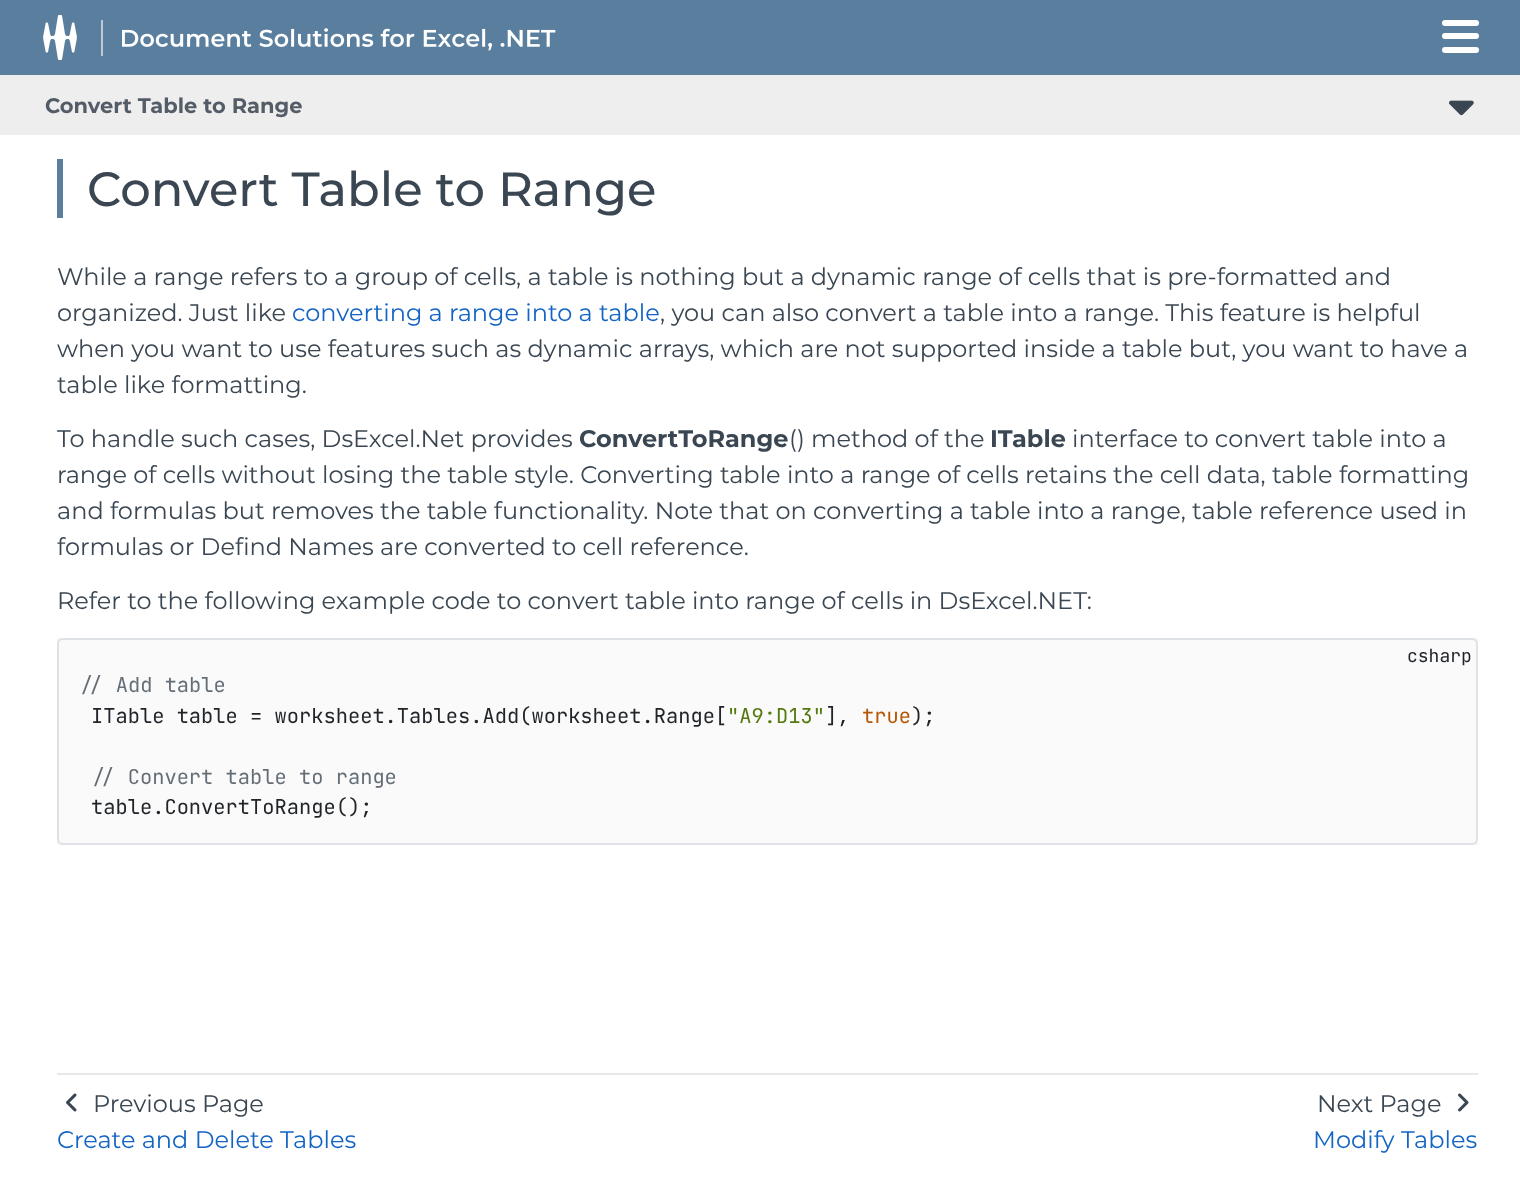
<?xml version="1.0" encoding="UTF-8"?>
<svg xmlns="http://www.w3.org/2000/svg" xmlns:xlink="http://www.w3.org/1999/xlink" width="1520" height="1203">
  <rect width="100%" height="100%" fill="#ffffff" />
  <rect width="1520" height="75" fill="#5a7e9e" />
  <image x="43" y="15" width="34" height="46" xlink:href="image1.png" />
  <rect x="101" y="20" width="2" height="36" fill="#bdcbd8" />
  <image x="122" y="28" width="434" height="23" xlink:href="image2.png" />
  <rect x="1442" y="20" width="37" height="6" rx="3" fill="#ffffff" />
  <rect x="1442" y="33" width="37" height="6" rx="3" fill="#ffffff" />
  <rect x="1442" y="47" width="37" height="6" rx="3" fill="#ffffff" />
  <rect y="75" width="1520" height="60" fill="#eeeeee" />
  <image x="1449" y="100" width="25" height="16" xlink:href="image3.png" />
  <rect x="57" y="159" width="6" height="59" fill="#5a7e9e" />
  <rect x="57" y="638" width="1421" height="207" fill="#f6f6f6" />
  <rect x="58" y="639" width="1419" height="205" rx="5" fill="#fafafa" stroke="#dee2e6" stroke-width="2" />
  <rect x="57" y="1073" width="1421" height="2" fill="#e8e8e8" />
  <image x="66" y="1093" width="11" height="19" xlink:href="image4.png" />
  <image x="1458" y="1093" width="11" height="19" xlink:href="image5.png" />
  <text x="45" y="113" style="font-family: Montserrat; font-size: 21px; font-weight: bold; fill: #535c67">Convert Table to Range</text>
  <text x="87" y="206" style="font-family: Montserrat; font-size: 48px; font-weight: 500; fill: #3a4652">Convert Table to Range</text>
  <text x="57" y="285" style="font-family: Montserrat; font-size: 24px; fill: #3a4652">While a range refers to a group of cells, a table is nothing but a dynamic range of cells that is pre-formatted and</text>
  <text x="57" y="321" style="font-family: Montserrat; font-size: 24px; fill: #3a4652">organized. Just like</text>
  <text x="292" y="321" style="font-family: Montserrat; font-size: 24px; fill: #1364c4">converting a range into a table</text>
  <text x="660" y="321" style="font-family: Montserrat; font-size: 24px; fill: #3a4652">, you can also convert a table into a range. This feature is helpful</text>
  <text x="57" y="357" style="font-family: Montserrat; font-size: 24px; fill: #3a4652">when you want to use features such as dynamic arrays, which are not supported inside a table but, you want to have a</text>
  <text x="57" y="393" style="font-family: Montserrat; font-size: 24px; fill: #3a4652">table like formatting.</text>
  <text x="57" y="447" style="font-family: Montserrat; font-size: 24px; fill: #3a4652">To handle such cases, DsExcel.Net provides</text>
  <text x="579" y="447" style="font-family: Montserrat; font-size: 24px; font-weight: bold; fill: #3a4652">ConvertToRange</text>
  <text x="789" y="447" style="font-family: Montserrat; font-size: 24px; fill: #3a4652">() method of the</text>
  <text x="990" y="447" style="font-family: Montserrat; font-size: 24px; font-weight: bold; fill: #3a4652">ITable</text>
  <text x="1072" y="447" style="font-family: Montserrat; font-size: 24px; fill: #3a4652">interface to convert table into a</text>
  <text x="57" y="483" style="font-family: Montserrat; font-size: 24px; fill: #3a4652">range of cells without losing the table style. Converting table into a range of cells retains the cell data, table formatting</text>
  <text x="57" y="519" style="font-family: Montserrat; font-size: 24px; fill: #3a4652">and formulas but removes the table functionality. Note that on converting a table into a range, table reference used in</text>
  <text x="57" y="555" style="font-family: Montserrat; font-size: 24px; fill: #3a4652">formulas or Defind Names are converted to cell reference.</text>
  <text x="57" y="609" style="font-family: Montserrat; font-size: 24px; fill: #3a4652">Refer to the following example code to convert table into range of cells in DsExcel.NET:</text>
  <text x="1407" y="662" style="font-family: JetBrains Mono; font-size: 18px; fill: #212529">csharp</text>
  <text x="79" y="692" style="font-family: JetBrains Mono; font-size: 20.4px; fill: #656e77">// Add table</text>
  <text x="91" y="723" style="font-family: JetBrains Mono; font-size: 20.4px; fill: #212529">ITable table = worksheet.Tables.Add(worksheet.Range[</text>
  <text x="727" y="723" style="font-family: JetBrains Mono; font-size: 20.4px; fill: #54790d">"A9:D13"</text>
  <text x="825" y="723" style="font-family: JetBrains Mono; font-size: 20.4px; fill: #212529">],</text>
  <text x="862" y="723" style="font-family: JetBrains Mono; font-size: 20.4px; fill: #b75501">true</text>
  <text x="911" y="723" style="font-family: JetBrains Mono; font-size: 20.4px; fill: #212529">);</text>
  <text x="91" y="784" style="font-family: JetBrains Mono; font-size: 20.4px; fill: #656e77">// Convert table to range</text>
  <text x="91" y="814" style="font-family: JetBrains Mono; font-size: 20.4px; fill: #212529">table.ConvertToRange();</text>
  <text x="93" y="1112" style="font-family: Montserrat; font-size: 24px; fill: #3a4652">Previous Page</text>
  <text x="57" y="1148" style="font-family: Montserrat; font-size: 24px; fill: #1364c4">Create and Delete Tables</text>
  <text x="1317" y="1112" style="font-family: Montserrat; font-size: 24px; fill: #3a4652">Next Page</text>
  <text x="1313" y="1148" style="font-family: Montserrat; font-size: 24px; fill: #1364c4">Modify Tables</text>
</svg>
